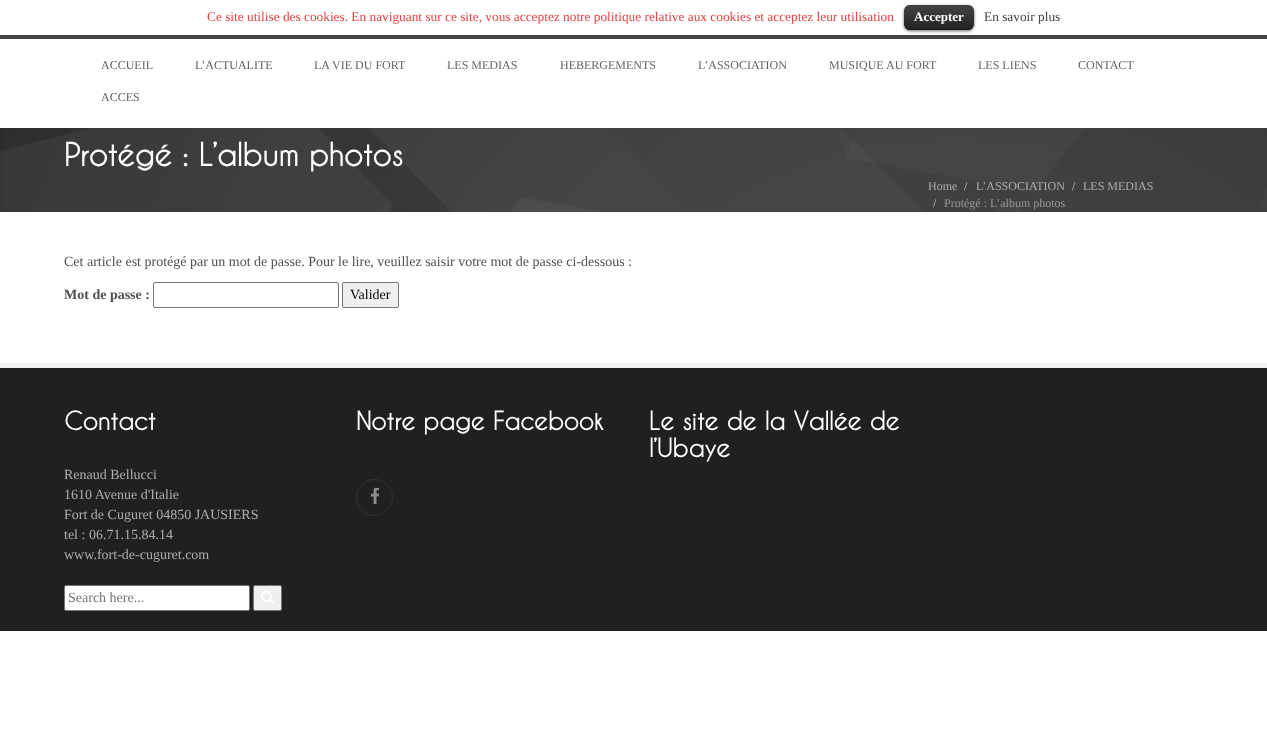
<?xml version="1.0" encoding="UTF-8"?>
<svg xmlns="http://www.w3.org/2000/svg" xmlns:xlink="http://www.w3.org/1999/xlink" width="1267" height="747">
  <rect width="100%" height="100%" fill="#ffffff" />
  <rect y="35" width="1267" height="4" fill="#444444" />
  <rect x="904" y="6" width="70" height="25" rx="6" fill="#000000" fill-opacity="0.6" filter="blur(1.5px)" />
  <rect x="904" y="5" width="70" height="25" rx="6" fill="#000000" />
  <image x="904" y="5" width="70" height="25" xlink:href="image1.png" />
  <rect x="907" y="29" width="64" height="1" fill="#000000" fill-opacity="0.25" />
  <image x="0" y="128" width="1267" height="84" xlink:href="image2.png" />
  <rect y="363" width="1267" height="5" fill="#f2f2f2" />
  <rect x="153.5" y="282.5" width="185" height="25" rx="1.5" fill="none" stroke="#767676" />
  <rect x="342.5" y="282.5" width="56" height="25" rx="1.5" fill="#efefef" stroke="#767676" />
  <rect y="368" width="1267" height="263" fill="#202020" />
  <rect x="64.5" y="585.5" width="185" height="25" rx="1.5" fill="#ffffff" stroke="#767676" />
  <rect x="253.5" y="585.5" width="28" height="25" rx="1.5" fill="#efefef" stroke="#767676" />
  <image x="261" y="591" width="13" height="13" xlink:href="image3.png" />
  <circle cx="374.5" cy="497.5" r="18" fill="none" stroke="#333333" />
  <image x="371" y="488" width="8" height="16" xlink:href="image4.png" />
  <text x="207" y="21" style="font-family: Liberation Serif; font-size: 13.33px; fill: #e54242">Ce site utilise des cookies. En naviguant sur ce site, vous acceptez notre politique relative aux cookies et acceptez leur utilisation</text>
  <text x="914" y="21" style="font-family: Liberation Serif; font-size: 13px; font-weight: bold; fill: #ffffff">Accepter</text>
  <text x="984" y="21" style="font-family: Liberation Serif; font-size: 13.33px; fill: #444444">En savoir plus</text>
  <text x="101" y="69" style="font-family: Liberation Serif; font-size: 12px; fill: #626262">ACCUEIL</text>
  <text x="195" y="69" style="font-family: Liberation Serif; font-size: 12px; fill: #626262">L’ACTUALITE</text>
  <text x="314" y="69" style="font-family: Liberation Serif; font-size: 12px; fill: #626262">LA VIE DU FORT</text>
  <text x="447" y="69" style="font-family: Liberation Serif; font-size: 12px; fill: #626262">LES MEDIAS</text>
  <text x="560" y="69" style="font-family: Liberation Serif; font-size: 12px; fill: #626262">HEBERGEMENTS</text>
  <text x="698" y="69" style="font-family: Liberation Serif; font-size: 12px; fill: #626262">L’ASSOCIATION</text>
  <text x="829" y="69" style="font-family: Liberation Serif; font-size: 12px; fill: #626262">MUSIQUE AU FORT</text>
  <text x="978" y="69" style="font-family: Liberation Serif; font-size: 12px; fill: #626262">LES LIENS</text>
  <text x="1078" y="69" style="font-family: Liberation Serif; font-size: 12px; fill: #626262">CONTACT</text>
  <text x="101" y="101" style="font-family: Liberation Serif; font-size: 12px; fill: #626262">ACCES</text>
  <text x="64" y="166" style="font-family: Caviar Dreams; font-size: 30px; font-weight: bold; fill: #ffffff">Protégé : L’album photos</text>
  <text x="928" y="190" style="font-family: Liberation Serif; font-size: 12px; fill: #aeaeae">Home</text>
  <text x="964" y="190" style="font-family: Liberation Serif; font-size: 12px; fill: #cccccc">/</text>
  <text x="976" y="190" style="font-family: Liberation Serif; font-size: 12px; fill: #aeaeae">L’ASSOCIATION</text>
  <text x="1072" y="190" style="font-family: Liberation Serif; font-size: 12px; fill: #cccccc">/</text>
  <text x="1083" y="190" style="font-family: Liberation Serif; font-size: 12px; fill: #aeaeae">LES MEDIAS</text>
  <text x="933" y="207" style="font-family: Liberation Serif; font-size: 12px; fill: #cccccc">/</text>
  <text x="944" y="207" style="font-family: Liberation Serif; font-size: 12px; fill: #999999">Protégé : L’album photos</text>
  <text x="64" y="266" style="font-family: Liberation Serif; font-size: 14px; fill: #505050">Cet article est protégé par un mot de passe. Pour le lire, veuillez saisir votre mot de passe ci-dessous :</text>
  <text x="64" y="299" style="font-family: Liberation Serif; font-size: 14px; font-weight: bold; fill: #505050">Mot de passe :</text>
  <text x="350" y="299" style="font-family: Liberation Serif; font-size: 14px; fill: #000000">Valider</text>
  <text x="64" y="430" style="font-family: Caviar Dreams; font-size: 24px; font-weight: bold; fill: #ffffff">Contact</text>
  <text x="64" y="479" style="font-family: Liberation Serif; font-size: 14px; fill: #aeaeae">Renaud Bellucci</text>
  <text x="64" y="499" style="font-family: Liberation Serif; font-size: 14px; fill: #aeaeae">1610 Avenue d'Italie</text>
  <text x="64" y="519" style="font-family: Liberation Serif; font-size: 14px; fill: #aeaeae">Fort de Cuguret 04850 JAUSIERS</text>
  <text x="64" y="539" style="font-family: Liberation Serif; font-size: 14px; fill: #aeaeae">tel : 06.71.15.84.14</text>
  <text x="64" y="559" style="font-family: Liberation Serif; font-size: 14px; fill: #aeaeae">www.fort-de-cuguret.com</text>
  <text x="68" y="602" style="font-family: Liberation Serif; font-size: 14px; fill: #757575">Search here...</text>
  <text x="356" y="430" style="font-family: Caviar Dreams; font-size: 24px; font-weight: bold; fill: #ffffff">Notre page Facebook</text>
  <text x="649" y="430" style="font-family: Caviar Dreams; font-size: 24px; font-weight: bold; fill: #ffffff">Le site de la Vallée de</text>
  <text x="649" y="457" style="font-family: Caviar Dreams; font-size: 24px; font-weight: bold; fill: #ffffff">l’Ubaye</text>
</svg>
